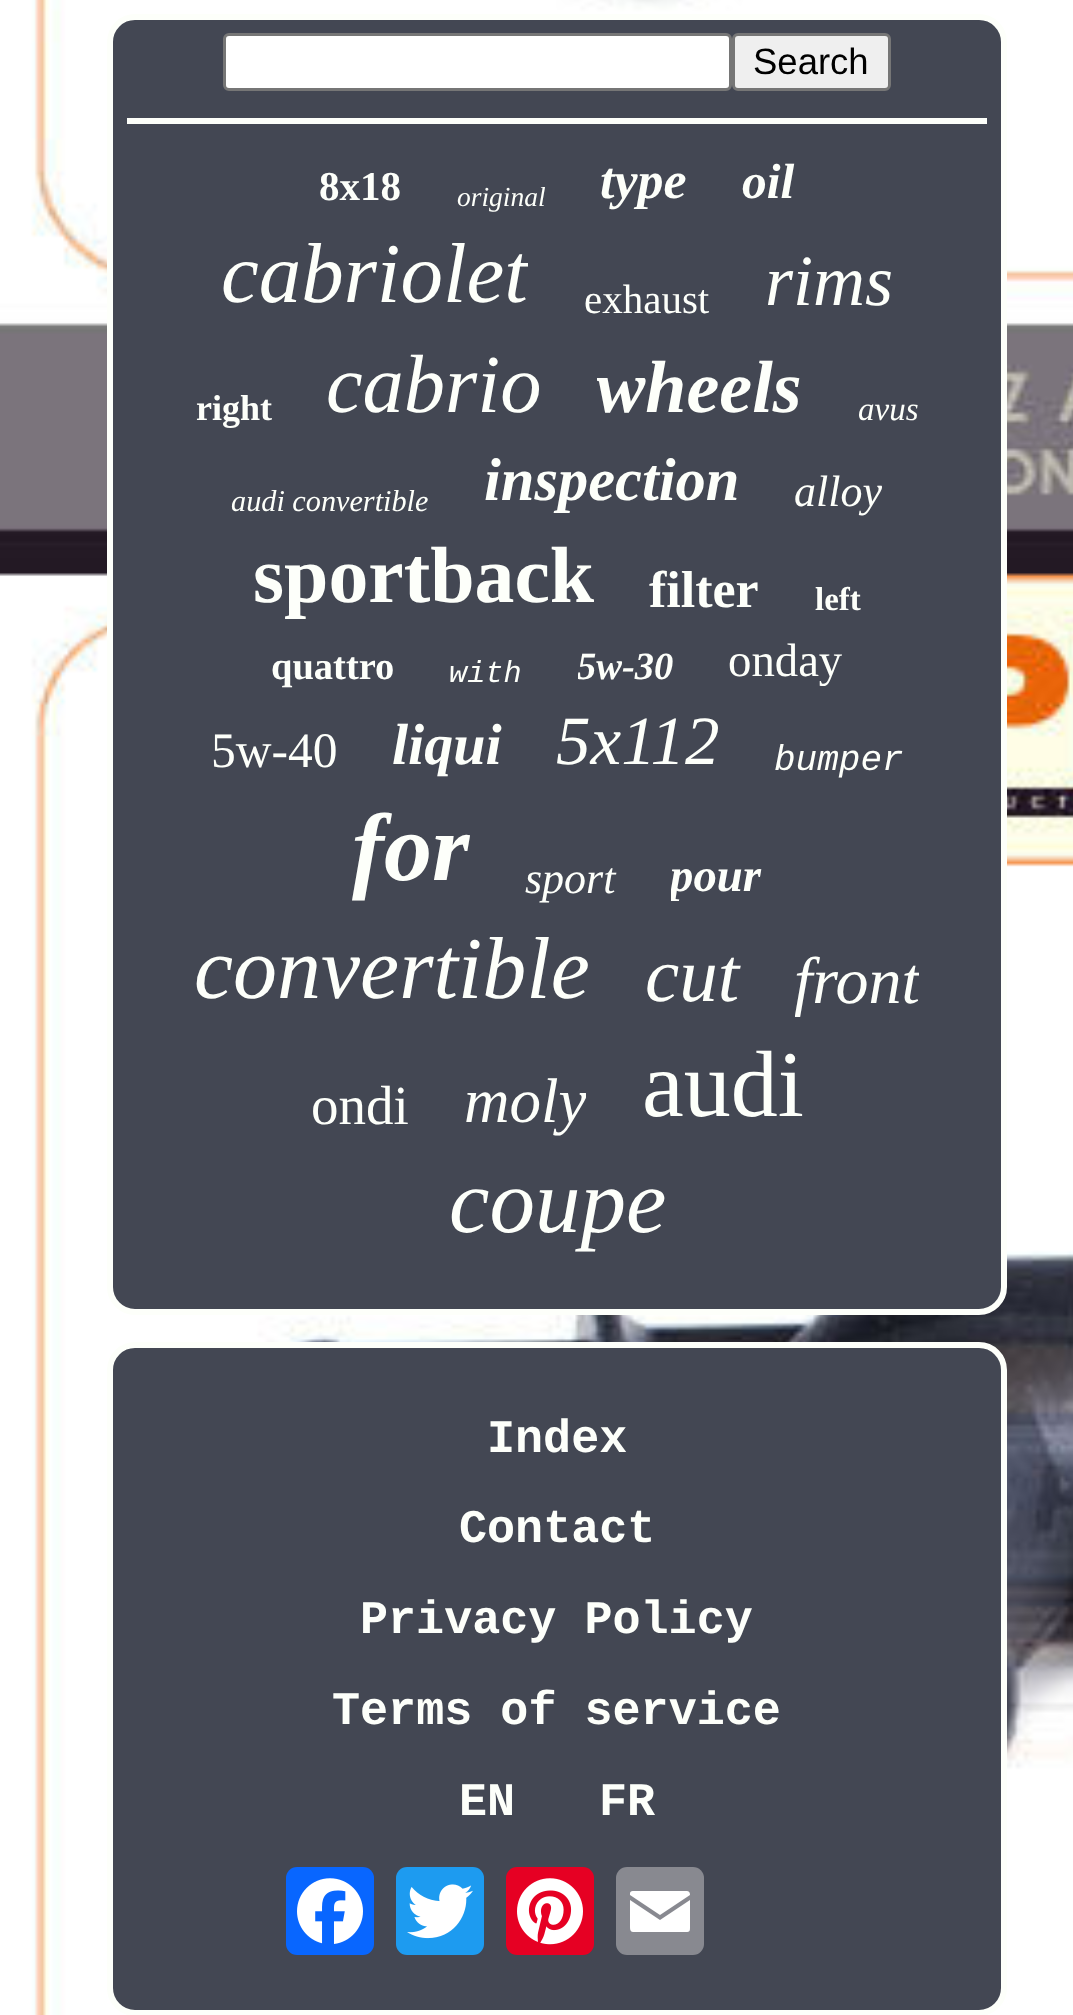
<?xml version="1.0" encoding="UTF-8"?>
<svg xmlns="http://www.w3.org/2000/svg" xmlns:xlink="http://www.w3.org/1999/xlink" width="1073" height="2015">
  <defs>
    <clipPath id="clip1"><rect x="220" y="226" width="308" height="99" /></clipPath>
    <clipPath id="clip2"><rect x="597" y="347" width="206" height="85" /></clipPath>
    <clipPath id="clip3"><rect x="253" y="531" width="341" height="91" /></clipPath>
    <clipPath id="clip4"><rect x="578" y="646" width="96" height="44" /></clipPath>
    <clipPath id="clip5"><rect x="352" y="795" width="118" height="110" /></clipPath>
    <clipPath id="clip6"><rect x="671" y="850" width="91" height="55" /></clipPath>
    <clipPath id="clip7"><rect x="795" y="946" width="124" height="74" /></clipPath>
    <clipPath id="clip8"><rect x="465" y="1067" width="121" height="72" /></clipPath>
  </defs>
  <rect width="100%" height="100%" fill="#ffffff" />
  <image x="0" y="0" width="1073" height="2015" xlink:href="image1.png" />
  <rect x="110" y="17" width="894" height="1295" rx="25" fill="#434753" stroke="#fdfffa" stroke-width="6" />
  <rect x="224.5" y="34.5" width="506" height="55" rx="4.5" fill="#ffffff" stroke="#767676" stroke-width="3" />
  <rect x="733.5" y="34.5" width="156" height="55" rx="4.5" fill="#efefef" stroke="#767676" stroke-width="3" />
  <rect x="127" y="118" width="860" height="6" fill="#fdfffa" />
  <rect x="110" y="1345" width="894" height="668" rx="25" fill="#434753" stroke="#fdfffa" stroke-width="6" />
  <rect x="286" y="1867" width="88" height="88" rx="11" fill="#0866ff" />
  <image x="297" y="1878" width="66" height="66" xlink:href="image2.png" />
  <rect x="396" y="1867" width="88" height="88" rx="11" fill="#1d9bf0" />
  <image x="407" y="1884" width="66" height="55" xlink:href="image3.png" />
  <rect x="506" y="1867" width="88" height="88" rx="11" fill="#e60023" />
  <image x="517" y="1878" width="66" height="67" xlink:href="image4.png" />
  <rect x="616" y="1867" width="88" height="88" rx="11" fill="#888990" />
  <path d="M 690 1927 v -27 l -30 20 l -30 -20 v 27 c 0 4 1 5 4 5 h 52 c 4 0 4 -1 4 -5 m 0 -32 c 0 -3 -1 -4 -4 -4 h -52 c -4 0 -4 1 -4 4 l 30 20 z" fill="#ffffff" />
  <text x="753" y="74" style="font-family: Liberation Sans; font-size: 36.5px; fill: #000000">Search</text>
  <text x="319" y="200" style="font-family: Liberation Serif; font-size: 41px; font-weight: bold; fill: #fdfffa">8x18</text>
  <text x="457" y="206" style="font-family: Liberation Serif; font-size: 27.5px; font-style: italic; fill: #fdfffa">original</text>
  <text x="600" y="198" style="font-family: Liberation Serif; font-size: 52px; font-weight: bold; font-style: italic; fill: #fdfffa">type</text>
  <text x="742" y="198" style="font-family: Liberation Serif; font-size: 49.5px; font-weight: bold; font-style: italic; fill: #fdfffa">oil</text>
  <g clip-path="url(#clip1)">
    <text x="221" y="302" style="font-family: Liberation Serif; font-size: 85px; font-style: italic; fill: #fdfffa">cabriolet</text>
  </g>
  <text x="584" y="313" style="font-family: Liberation Serif; font-size: 41px; fill: #fdfffa">exhaust</text>
  <text x="765" y="305" style="font-family: Liberation Serif; font-size: 72px; font-style: italic; fill: #fdfffa">rims</text>
  <text x="196" y="420" style="font-family: Liberation Serif; font-size: 36px; font-weight: bold; fill: #fdfffa">right</text>
  <text x="326" y="412" style="font-family: Liberation Serif; font-size: 82.5px; font-style: italic; fill: #fdfffa">cabrio</text>
  <g clip-path="url(#clip2)">
    <text x="596" y="412" style="font-family: Liberation Serif; font-size: 74px; font-weight: bold; font-style: italic; fill: #fdfffa">wheels</text>
  </g>
  <text x="858" y="420" style="font-family: Liberation Serif; font-size: 33px; font-style: italic; fill: #fdfffa">avus</text>
  <text x="231" y="511" style="font-family: Liberation Serif; font-size: 30.25px; font-style: italic; fill: #fdfffa">audi convertible</text>
  <text x="484" y="500" style="font-family: Liberation Serif; font-size: 60.5px; font-weight: bold; font-style: italic; fill: #fdfffa">inspection</text>
  <text x="794" y="506" style="font-family: Liberation Serif; font-size: 44px; font-style: italic; fill: #fdfffa">alloy</text>
  <g clip-path="url(#clip3)">
    <text x="253" y="602" style="font-family: Liberation Serif; font-size: 79.75px; font-weight: bold; fill: #fdfffa">sportback</text>
  </g>
  <text x="649" y="607" style="font-family: Liberation Serif; font-size: 52px; font-weight: bold; fill: #fdfffa">filter</text>
  <text x="815" y="610" style="font-family: Liberation Serif; font-size: 33px; font-weight: bold; fill: #fdfffa">left</text>
  <text x="271" y="679" style="font-family: Liberation Serif; font-size: 38.5px; font-weight: bold; fill: #fdfffa">quattro</text>
  <text x="449" y="682" style="font-family: Liberation Mono; font-size: 30.25px; font-style: italic; fill: #fdfffa">with</text>
  <g clip-path="url(#clip4)">
    <text x="577" y="679" style="font-family: Liberation Serif; font-size: 38.5px; font-weight: bold; font-style: italic; fill: #fdfffa">5w-30</text>
  </g>
  <text x="728" y="676" style="font-family: Liberation Serif; font-size: 46.75px; fill: #fdfffa">onday</text>
  <text x="211" y="767" style="font-family: Liberation Serif; font-size: 49.5px; fill: #fdfffa">5w-40</text>
  <text x="392" y="764" style="font-family: Liberation Serif; font-size: 58px; font-weight: bold; font-style: italic; fill: #fdfffa">liqui</text>
  <text x="556" y="764" style="font-family: Liberation Serif; font-size: 69px; font-style: italic; fill: #fdfffa">5x112</text>
  <text x="774" y="770" style="font-family: Liberation Mono; font-size: 36px; font-style: italic; fill: #fdfffa">bumper</text>
  <g clip-path="url(#clip5)">
    <text x="352" y="880" style="font-family: Liberation Serif; font-size: 96px; font-weight: bold; font-style: italic; fill: #fdfffa">for</text>
  </g>
  <text x="525" y="893" style="font-family: Liberation Serif; font-size: 44px; font-style: italic; fill: #fdfffa">sport</text>
  <g clip-path="url(#clip6)">
    <text x="670" y="891" style="font-family: Liberation Serif; font-size: 46.75px; font-weight: bold; font-style: italic; fill: #fdfffa">pour</text>
  </g>
  <text x="194" y="998" style="font-family: Liberation Serif; font-size: 88px; font-style: italic; fill: #fdfffa">convertible</text>
  <text x="645" y="1001" style="font-family: Liberation Serif; font-size: 77px; font-style: italic; fill: #fdfffa">cut</text>
  <g clip-path="url(#clip7)">
    <text x="794" y="1003" style="font-family: Liberation Serif; font-size: 66px; font-style: italic; fill: #fdfffa">front</text>
  </g>
  <text x="311" y="1124" style="font-family: Liberation Serif; font-size: 55px; fill: #fdfffa">ondi</text>
  <g clip-path="url(#clip8)">
    <text x="464" y="1122" style="font-family: Liberation Serif; font-size: 63px; font-style: italic; fill: #fdfffa">moly</text>
  </g>
  <text x="642" y="1116" style="font-family: Liberation Serif; font-size: 94px; fill: #fdfffa">audi</text>
  <text x="449" y="1232" style="font-family: Liberation Serif; font-size: 91px; font-style: italic; fill: #fdfffa">coupe</text>
  <text x="487" y="1452" style="font-family: Liberation Mono; font-size: 46.75px; font-weight: bold; fill: #fdfffa">Index</text>
  <text x="459" y="1542" style="font-family: Liberation Mono; font-size: 46.75px; font-weight: bold; fill: #fdfffa">Contact</text>
  <text x="360" y="1633" style="font-family: Liberation Mono; font-size: 46.75px; font-weight: bold; fill: #fdfffa">Privacy Policy</text>
  <text x="332" y="1724" style="font-family: Liberation Mono; font-size: 46.75px; font-weight: bold; fill: #fdfffa">Terms of service</text>
  <text x="459" y="1815" style="font-family: Liberation Mono; font-size: 46.75px; font-weight: bold; fill: #fdfffa">EN</text>
  <text x="599" y="1815" style="font-family: Liberation Mono; font-size: 46.75px; font-weight: bold; fill: #fdfffa">FR</text>
</svg>
